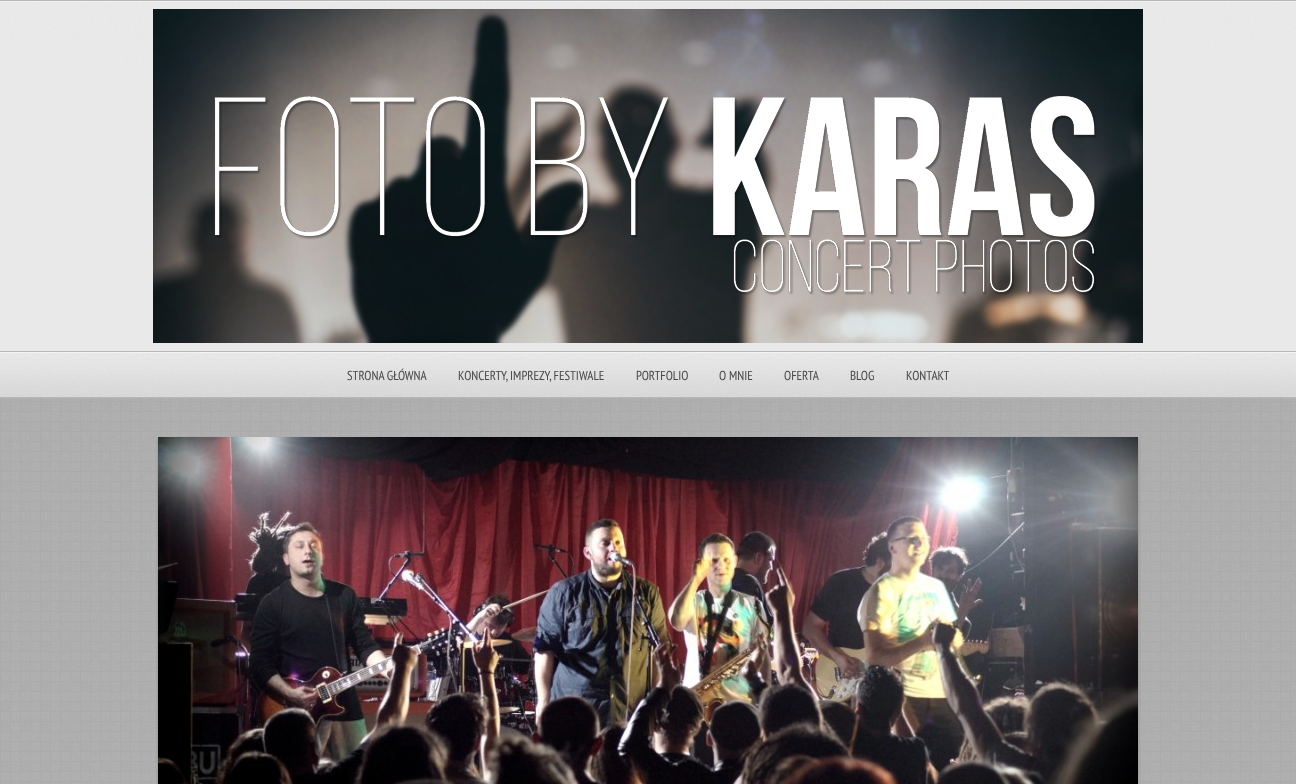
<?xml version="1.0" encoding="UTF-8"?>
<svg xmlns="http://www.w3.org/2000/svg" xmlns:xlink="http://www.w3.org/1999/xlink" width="1296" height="784">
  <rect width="100%" height="100%" fill="#b0b0b0" />
  <image x="0" y="398" width="1296" height="386" xlink:href="image1.png" />
  <rect y="1" width="1296" height="396" fill="#e9e9e9" />
  <image x="2" y="1" width="1294" height="62" xlink:href="image2.png" />
  <rect y="1" width="1296" height="1" fill="#ffffff" fill-opacity="0.4" />
  <rect width="1296" height="1" fill="#b7b7b7" />
  <rect y="397" width="1296" height="1" fill="#b7b7b7" />
  <image x="153" y="9" width="990" height="334" xlink:href="image3.png" />
  <image x="0" y="352" width="1296" height="45" xlink:href="image4.png" />
  <rect y="352" width="1296" height="1" fill="#ffffff" fill-opacity="0.4" />
  <rect y="351" width="1296" height="1" fill="#b7b7b7" />
  <rect x="158" y="439" width="980" height="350" fill="#000000" fill-opacity="0.2" filter="blur(1.5px)" />
  <image x="158" y="437" width="980" height="347" xlink:href="image5.png" />
  <text x="347" y="380" style="font-family: PT Sans Narrow; font-size: 13px; fill: #484848">STRONA GŁÓWNA</text>
  <text x="458" y="380" style="font-family: PT Sans Narrow; font-size: 13px; fill: #484848">KONCERTY, IMPREZY, FESTIWALE</text>
  <text x="636" y="380" style="font-family: PT Sans Narrow; font-size: 13px; fill: #484848">PORTFOLIO</text>
  <text x="719" y="380" style="font-family: PT Sans Narrow; font-size: 13px; fill: #484848">O MNIE</text>
  <text x="784" y="380" style="font-family: PT Sans Narrow; font-size: 13px; fill: #484848">OFERTA</text>
  <text x="850" y="380" style="font-family: PT Sans Narrow; font-size: 13px; fill: #484848">BLOG</text>
  <text x="906" y="380" style="font-family: PT Sans Narrow; font-size: 13px; fill: #484848">KONTAKT</text>
</svg>
